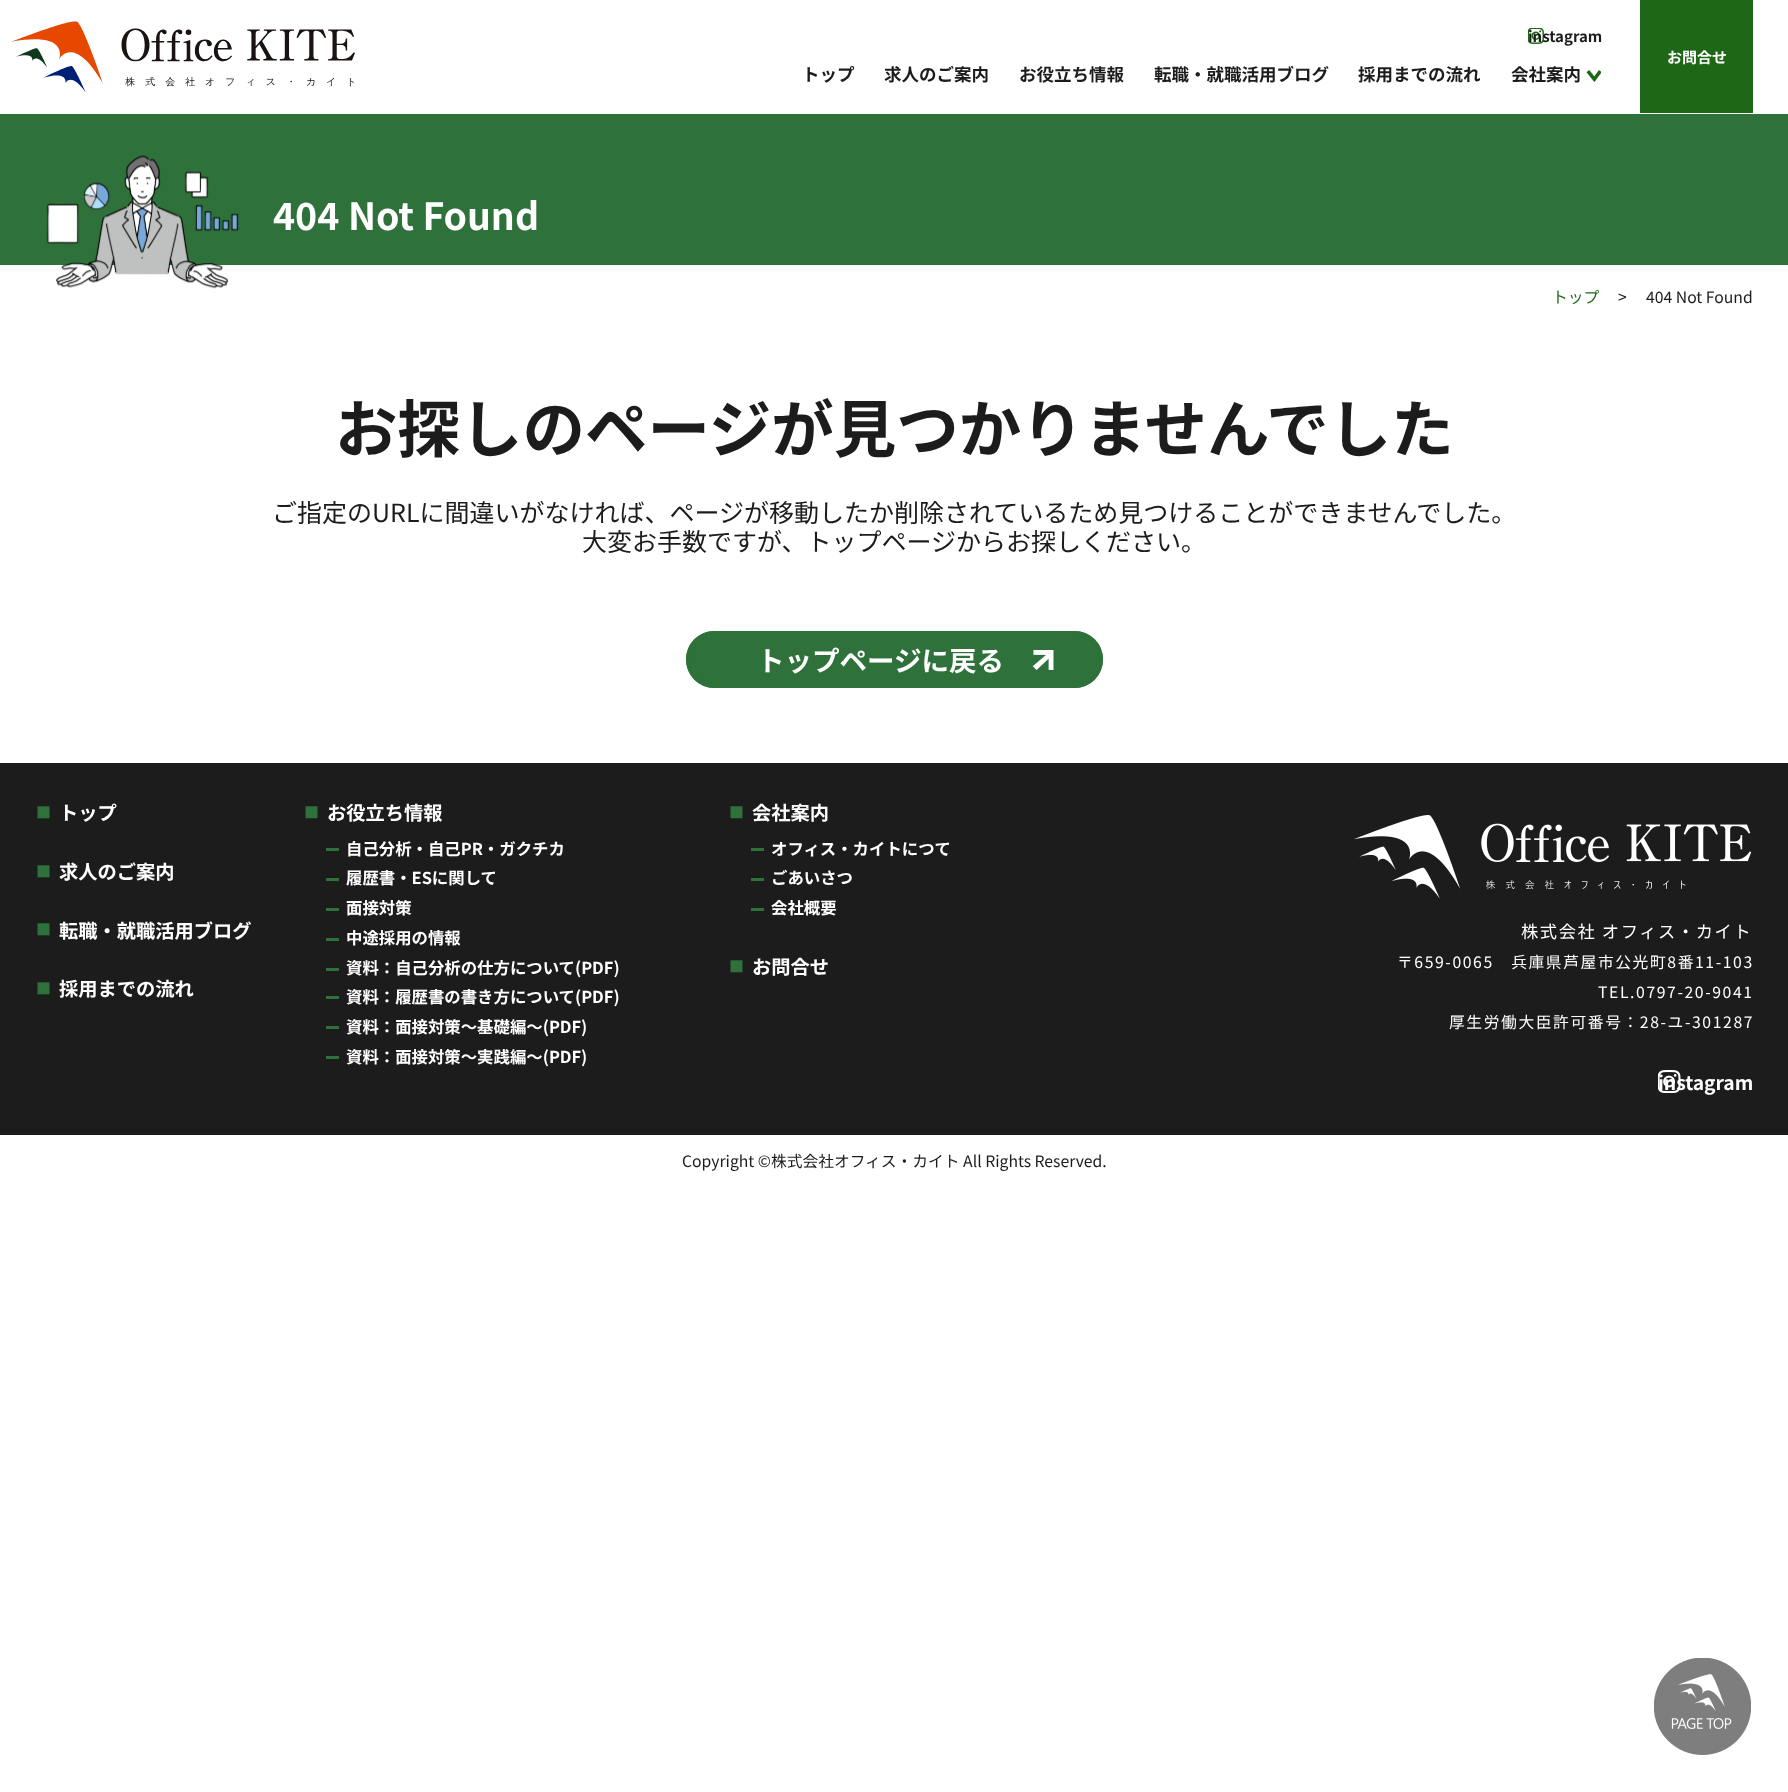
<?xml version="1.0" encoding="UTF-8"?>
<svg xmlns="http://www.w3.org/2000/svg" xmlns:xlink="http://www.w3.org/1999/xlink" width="1788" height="1792">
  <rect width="100%" height="100%" fill="#ffffff" />
  <image x="11" y="21" width="344" height="71" xlink:href="image1.png" />
  <image x="1528" y="28" width="16" height="16" xlink:href="image2.png" />
  <image x="1586" y="70" width="15" height="12" xlink:href="image3.png" />
  <rect x="1640" width="113" height="113" fill="#1d6716" />
  <rect y="114" width="1788" height="151" fill="#2e713a" />
  <image x="46" y="155" width="193" height="134" xlink:href="image4.png" />
  <rect x="686" y="631" width="417" height="57" rx="28.5" fill="#2e713a" />
  <image x="1032" y="650" width="22" height="20" xlink:href="image5.png" />
  <rect x="687.5" y="632.5" width="414" height="54" rx="27" fill="none" stroke="#2e713a" stroke-width="3" />
  <rect y="763" width="1788" height="372" fill="#1c1c1c" />
  <rect x="326" y="848" width="13" height="3" fill="#2e713a" />
  <rect x="326" y="878" width="13" height="3" fill="#2e713a" />
  <rect x="326" y="908" width="13" height="3" fill="#2e713a" />
  <rect x="326" y="938" width="13" height="3" fill="#2e713a" />
  <rect x="326" y="968" width="13" height="3" fill="#2e713a" />
  <rect x="326" y="996" width="13" height="3" fill="#2e713a" />
  <rect x="326" y="1026" width="13" height="3" fill="#2e713a" />
  <rect x="326" y="1056" width="13" height="3" fill="#2e713a" />
  <rect x="751" y="848" width="13" height="3" fill="#2e713a" />
  <rect x="751" y="878" width="13" height="3" fill="#2e713a" />
  <rect x="751" y="908" width="13" height="3" fill="#2e713a" />
  <image x="1354" y="815" width="398" height="84" xlink:href="image6.png" />
  <image x="1658" y="1070" width="23" height="23" xlink:href="image7.png" />
  <image x="1654" y="1658" width="97" height="97" xlink:href="image8.png" />
  <text x="1528" y="42" style="font-family: Noto Sans JP; font-size: 15px; font-weight: bold; fill: #1c1c1c">instagram</text>
  <text x="802" y="81" style="font-family: Noto Sans JP; font-size: 17.5px; font-weight: bold; fill: #1c1c1c">トップ</text>
  <text x="884" y="81" style="font-family: Noto Sans JP; font-size: 17.5px; font-weight: bold; fill: #1c1c1c">求人のご案内</text>
  <text x="1019" y="81" style="font-family: Noto Sans JP; font-size: 17.5px; font-weight: bold; fill: #1c1c1c">お役立ち情報</text>
  <text x="1154" y="81" style="font-family: Noto Sans JP; font-size: 17.5px; font-weight: bold; fill: #1c1c1c">転職・就職活用ブログ</text>
  <text x="1358" y="81" style="font-family: Noto Sans JP; font-size: 17.5px; font-weight: bold; fill: #1c1c1c">採用までの流れ</text>
  <text x="1511" y="81" style="font-family: Noto Sans JP; font-size: 17.5px; font-weight: bold; fill: #1c1c1c">会社案内</text>
  <text x="1667" y="63" style="font-family: Noto Sans JP; font-size: 15px; font-weight: bold; fill: #ffffff">お問合せ</text>
  <text x="273" y="230" style="font-family: Noto Sans JP; font-size: 37.5px; font-weight: bold; fill: #ffffff">404 Not Found</text>
  <text x="1552" y="303" style="font-family: Noto Sans JP; font-size: 15.75px; fill: #1d6716">トップ</text>
  <text x="1618" y="303" style="font-family: Noto Sans JP; font-size: 15.75px; fill: #1c1c1c">&gt; 　404 Not Found</text>
  <text x="335" y="452" style="font-family: Noto Sans JP; font-size: 62.5px; font-weight: bold; fill: #1c1c1c">お探しのページが見つかりませんでした</text>
  <text x="272" y="522" style="font-family: Noto Sans JP; font-size: 25px; fill: #1c1c1c">ご指定のURLに間違いがなければ、ページが移動したか削除されているため見つけることができませんでした。</text>
  <text x="582" y="551" style="font-family: Noto Sans JP; font-size: 25px; fill: #1c1c1c">大変お手数ですが、トップページからお探しください。</text>
  <text x="757" y="671" style="font-family: Noto Sans JP; font-size: 27.5px; font-weight: bold; fill: #ffffff">トップページに戻る</text>
  <text x="36" y="818" style="font-family: Noto Sans JP; font-size: 15px; font-weight: bold; fill: #2e713a">■</text>
  <text x="59" y="820" style="font-family: Noto Sans JP; font-size: 19.25px; font-weight: bold; fill: #ffffff">トップ</text>
  <text x="36" y="877" style="font-family: Noto Sans JP; font-size: 15px; font-weight: bold; fill: #2e713a">■</text>
  <text x="59" y="879" style="font-family: Noto Sans JP; font-size: 19.25px; font-weight: bold; fill: #ffffff">求人のご案内</text>
  <text x="36" y="935" style="font-family: Noto Sans JP; font-size: 15px; font-weight: bold; fill: #2e713a">■</text>
  <text x="59" y="938" style="font-family: Noto Sans JP; font-size: 19.25px; font-weight: bold; fill: #ffffff">転職・就職活用ブログ</text>
  <text x="36" y="994" style="font-family: Noto Sans JP; font-size: 15px; font-weight: bold; fill: #2e713a">■</text>
  <text x="59" y="996" style="font-family: Noto Sans JP; font-size: 19.25px; font-weight: bold; fill: #ffffff">採用までの流れ</text>
  <text x="304" y="818" style="font-family: Noto Sans JP; font-size: 15px; font-weight: bold; fill: #2e713a">■</text>
  <text x="327" y="820" style="font-family: Noto Sans JP; font-size: 19.25px; font-weight: bold; fill: #ffffff">お役立ち情報</text>
  <text x="346" y="855" style="font-family: Noto Sans JP; font-size: 16.4px; font-weight: bold; fill: #ffffff">自己分析・自己PR・ガクチカ</text>
  <text x="346" y="884" style="font-family: Noto Sans JP; font-size: 16.4px; font-weight: bold; fill: #ffffff">履歴書・ESに関して</text>
  <text x="346" y="914" style="font-family: Noto Sans JP; font-size: 16.4px; font-weight: bold; fill: #ffffff">面接対策</text>
  <text x="346" y="944" style="font-family: Noto Sans JP; font-size: 16.4px; font-weight: bold; fill: #ffffff">中途採用の情報</text>
  <text x="346" y="974" style="font-family: Noto Sans JP; font-size: 16.4px; font-weight: bold; fill: #ffffff">資料：自己分析の仕方について(PDF)</text>
  <text x="346" y="1003" style="font-family: Noto Sans JP; font-size: 16.4px; font-weight: bold; fill: #ffffff">資料：履歴書の書き方について(PDF)</text>
  <text x="346" y="1033" style="font-family: Noto Sans JP; font-size: 16.4px; font-weight: bold; fill: #ffffff">資料：面接対策〜基礎編〜(PDF)</text>
  <text x="346" y="1063" style="font-family: Noto Sans JP; font-size: 16.4px; font-weight: bold; fill: #ffffff">資料：面接対策〜実践編〜(PDF)</text>
  <text x="729" y="818" style="font-family: Noto Sans JP; font-size: 15px; font-weight: bold; fill: #2e713a">■</text>
  <text x="752" y="820" style="font-family: Noto Sans JP; font-size: 19.25px; font-weight: bold; fill: #ffffff">会社案内</text>
  <text x="771" y="855" style="font-family: Noto Sans JP; font-size: 16.4px; font-weight: bold; fill: #ffffff">オフィス・カイトにつて</text>
  <text x="771" y="884" style="font-family: Noto Sans JP; font-size: 16.4px; font-weight: bold; fill: #ffffff">ごあいさつ</text>
  <text x="771" y="914" style="font-family: Noto Sans JP; font-size: 16.4px; font-weight: bold; fill: #ffffff">会社概要</text>
  <text x="729" y="972" style="font-family: Noto Sans JP; font-size: 15px; font-weight: bold; fill: #2e713a">■</text>
  <text x="752" y="974" style="font-family: Noto Sans JP; font-size: 19.25px; font-weight: bold; fill: #ffffff">お問合せ</text>
  <text x="1521" y="938" style="font-family: Noto Sans JP; font-size: 17.25px; letter-spacing: 1.6px; fill: #ffffff">株式会社 オフィス・カイト</text>
  <text x="1397" y="968" style="font-family: Noto Sans JP; font-size: 15.75px; letter-spacing: 1.6px; fill: #ffffff">〒659-0065　兵庫県芦屋市公光町8番11-103</text>
  <text x="1598" y="998" style="font-family: Noto Sans JP; font-size: 15.75px; letter-spacing: 1.6px; fill: #ffffff">TEL.0797-20-9041</text>
  <text x="1449" y="1028" style="font-family: Noto Sans JP; font-size: 15.75px; letter-spacing: 1.6px; fill: #ffffff">厚生労働大臣許可番号：28-ユ-301287</text>
  <text x="1658" y="1090" style="font-family: Noto Sans JP; font-size: 19.25px; font-weight: bold; fill: #ffffff">instagram</text>
  <text x="682" y="1167" style="font-family: Noto Sans JP; font-size: 15.75px; fill: #1c1c1c">Copyright ©株式会社オフィス・カイト All Rights Reserved.</text>
</svg>
